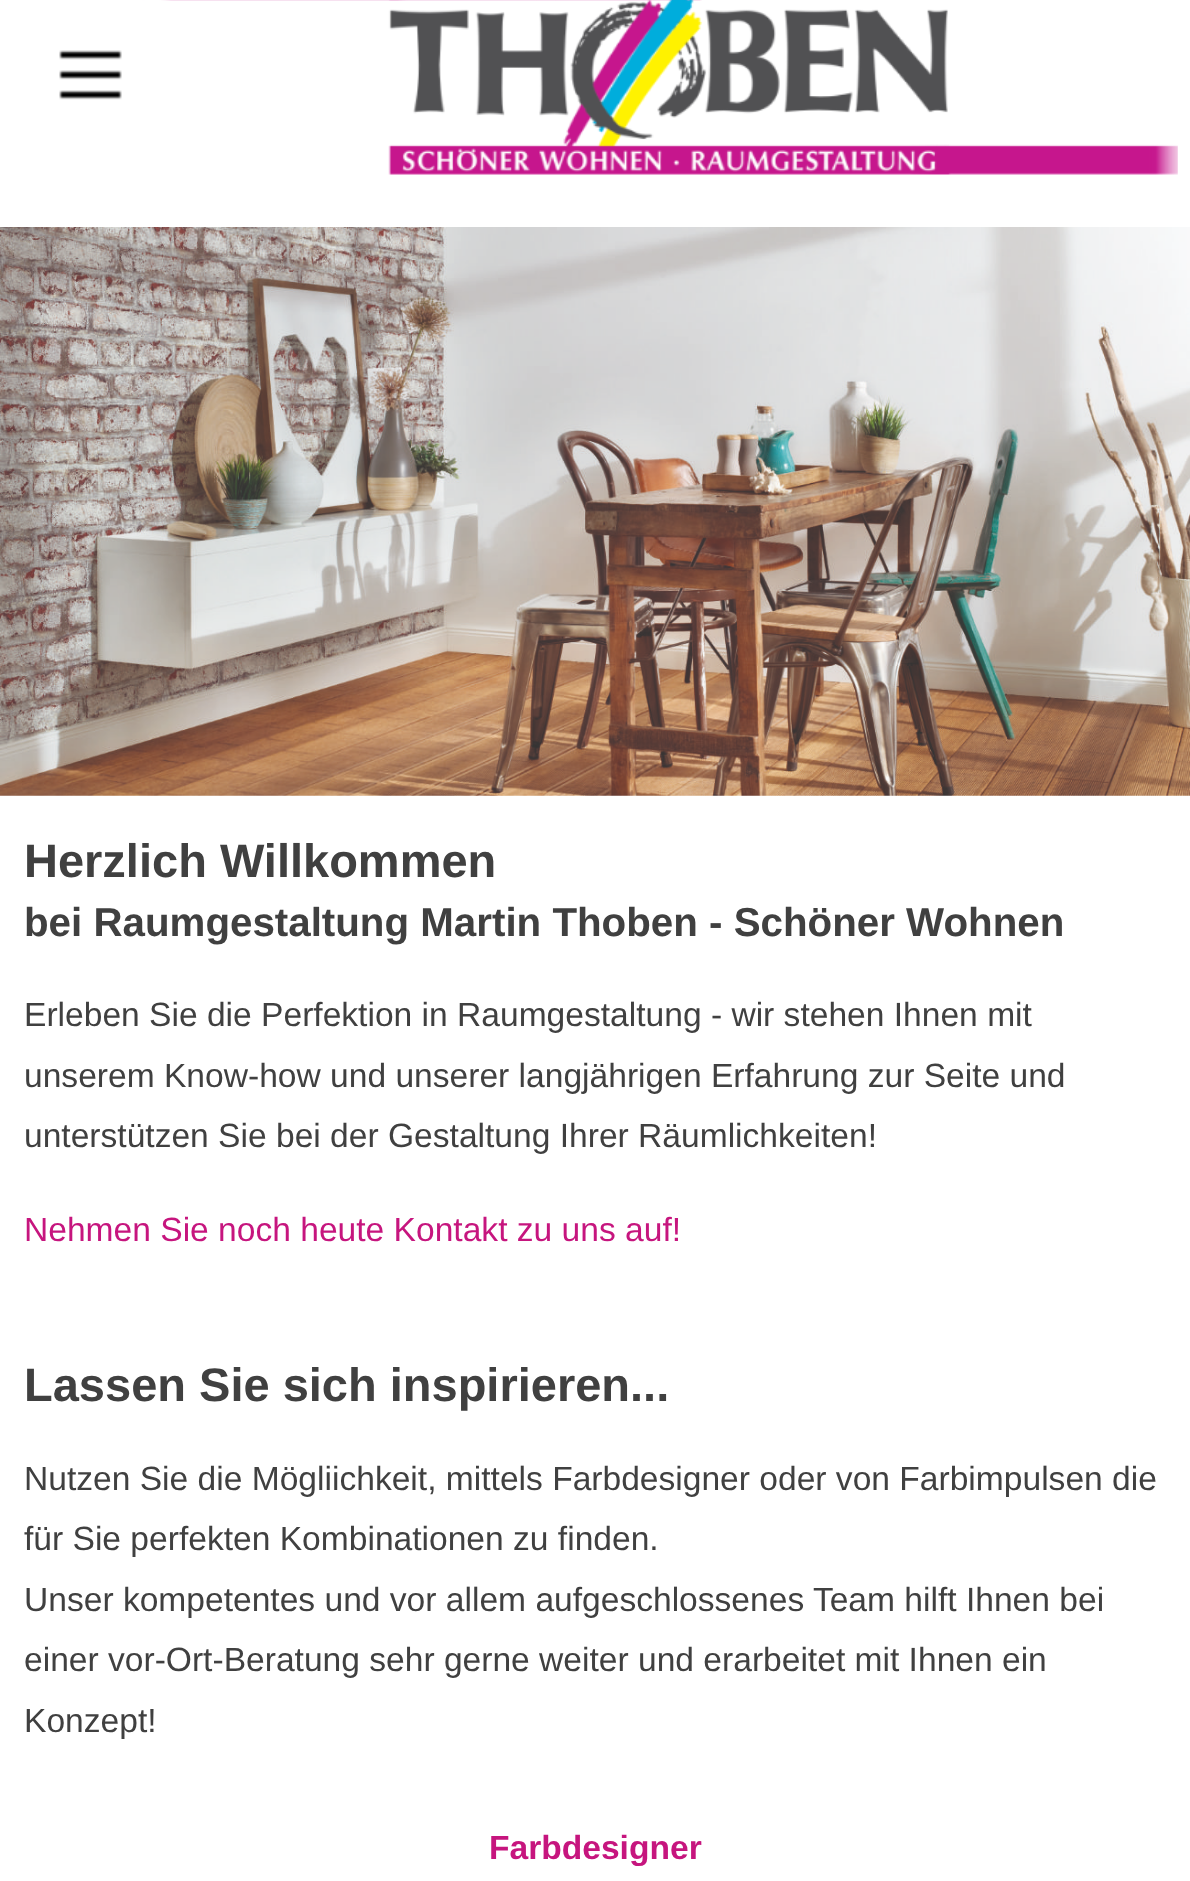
<?xml version="1.0" encoding="UTF-8"?>
<svg xmlns="http://www.w3.org/2000/svg" xmlns:xlink="http://www.w3.org/1999/xlink" width="1190" height="1881">
  <rect width="100%" height="100%" fill="#ffffff" />
  <image x="59" y="0" width="1119" height="175" xlink:href="image1.png" />
  <image x="0" y="227" width="1190" height="569" xlink:href="image2.png" />
  <text x="24" y="877" style="font-family: Liberation Sans; font-size: 47px; font-weight: bold; fill: #404040">Herzlich Willkommen</text>
  <text x="24" y="936" style="font-family: Liberation Sans; font-size: 40.3px; font-weight: bold; fill: #404040">bei Raumgestaltung Martin Thoben - Schöner Wohnen</text>
  <text x="24" y="1026" style="font-family: Liberation Sans; font-size: 33.6px; fill: #404040">Erleben Sie die Perfektion in Raumgestaltung - wir stehen Ihnen mit</text>
  <text x="24" y="1087" style="font-family: Liberation Sans; font-size: 33.6px; fill: #404040">unserem Know-how und unserer langjährigen Erfahrung zur Seite und</text>
  <text x="24" y="1147" style="font-family: Liberation Sans; font-size: 33.6px; fill: #404040">unterstützen Sie bei der Gestaltung Ihrer Räumlichkeiten!</text>
  <text x="24" y="1241" style="font-family: Liberation Sans; font-size: 33.6px; fill: #c6157e">Nehmen Sie noch heute Kontakt zu uns auf!</text>
  <text x="24" y="1401" style="font-family: Liberation Sans; font-size: 47px; font-weight: bold; fill: #404040">Lassen Sie sich inspirieren...</text>
  <text x="24" y="1490" style="font-family: Liberation Sans; font-size: 33.6px; fill: #404040">Nutzen Sie die Mögliichkeit, mittels Farbdesigner oder von Farbimpulsen die</text>
  <text x="24" y="1550" style="font-family: Liberation Sans; font-size: 33.6px; fill: #404040">für Sie perfekten Kombinationen zu finden.</text>
  <text x="24" y="1611" style="font-family: Liberation Sans; font-size: 33.6px; fill: #404040">Unser kompetentes und vor allem aufgeschlossenes Team hilft Ihnen bei</text>
  <text x="24" y="1671" style="font-family: Liberation Sans; font-size: 33.6px; fill: #404040">einer vor-Ort-Beratung sehr gerne weiter und erarbeitet mit Ihnen ein</text>
  <text x="24" y="1732" style="font-family: Liberation Sans; font-size: 33.6px; fill: #404040">Konzept!</text>
  <text x="489" y="1859" style="font-family: Liberation Sans; font-size: 33.6px; font-weight: bold; fill: #c6157e">Farbdesigner</text>
</svg>
